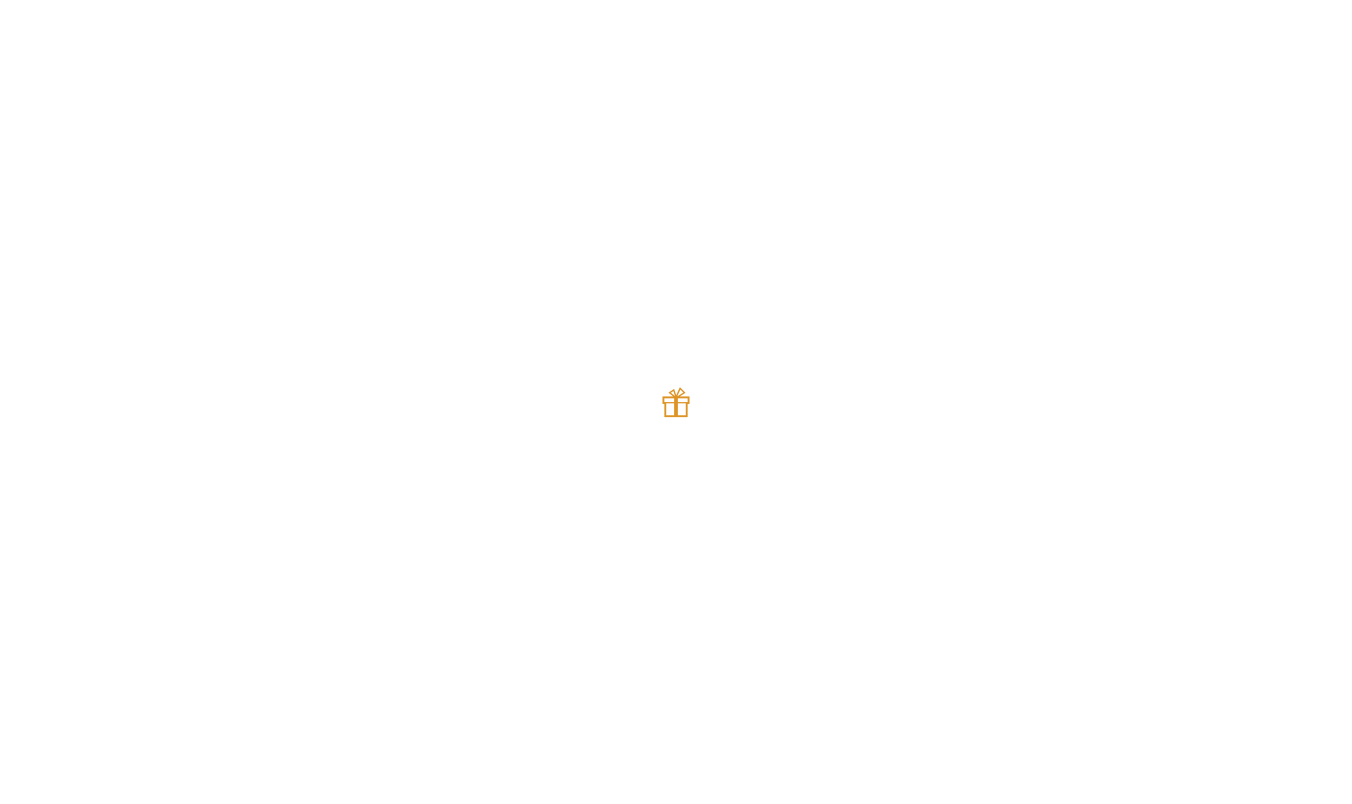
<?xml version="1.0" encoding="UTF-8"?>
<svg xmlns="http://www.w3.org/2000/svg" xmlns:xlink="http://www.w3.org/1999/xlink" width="1352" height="804">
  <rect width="100%" height="100%" fill="#ffffff" />
  <image x="662" y="387" width="28" height="31" xlink:href="image1.png" />
</svg>
